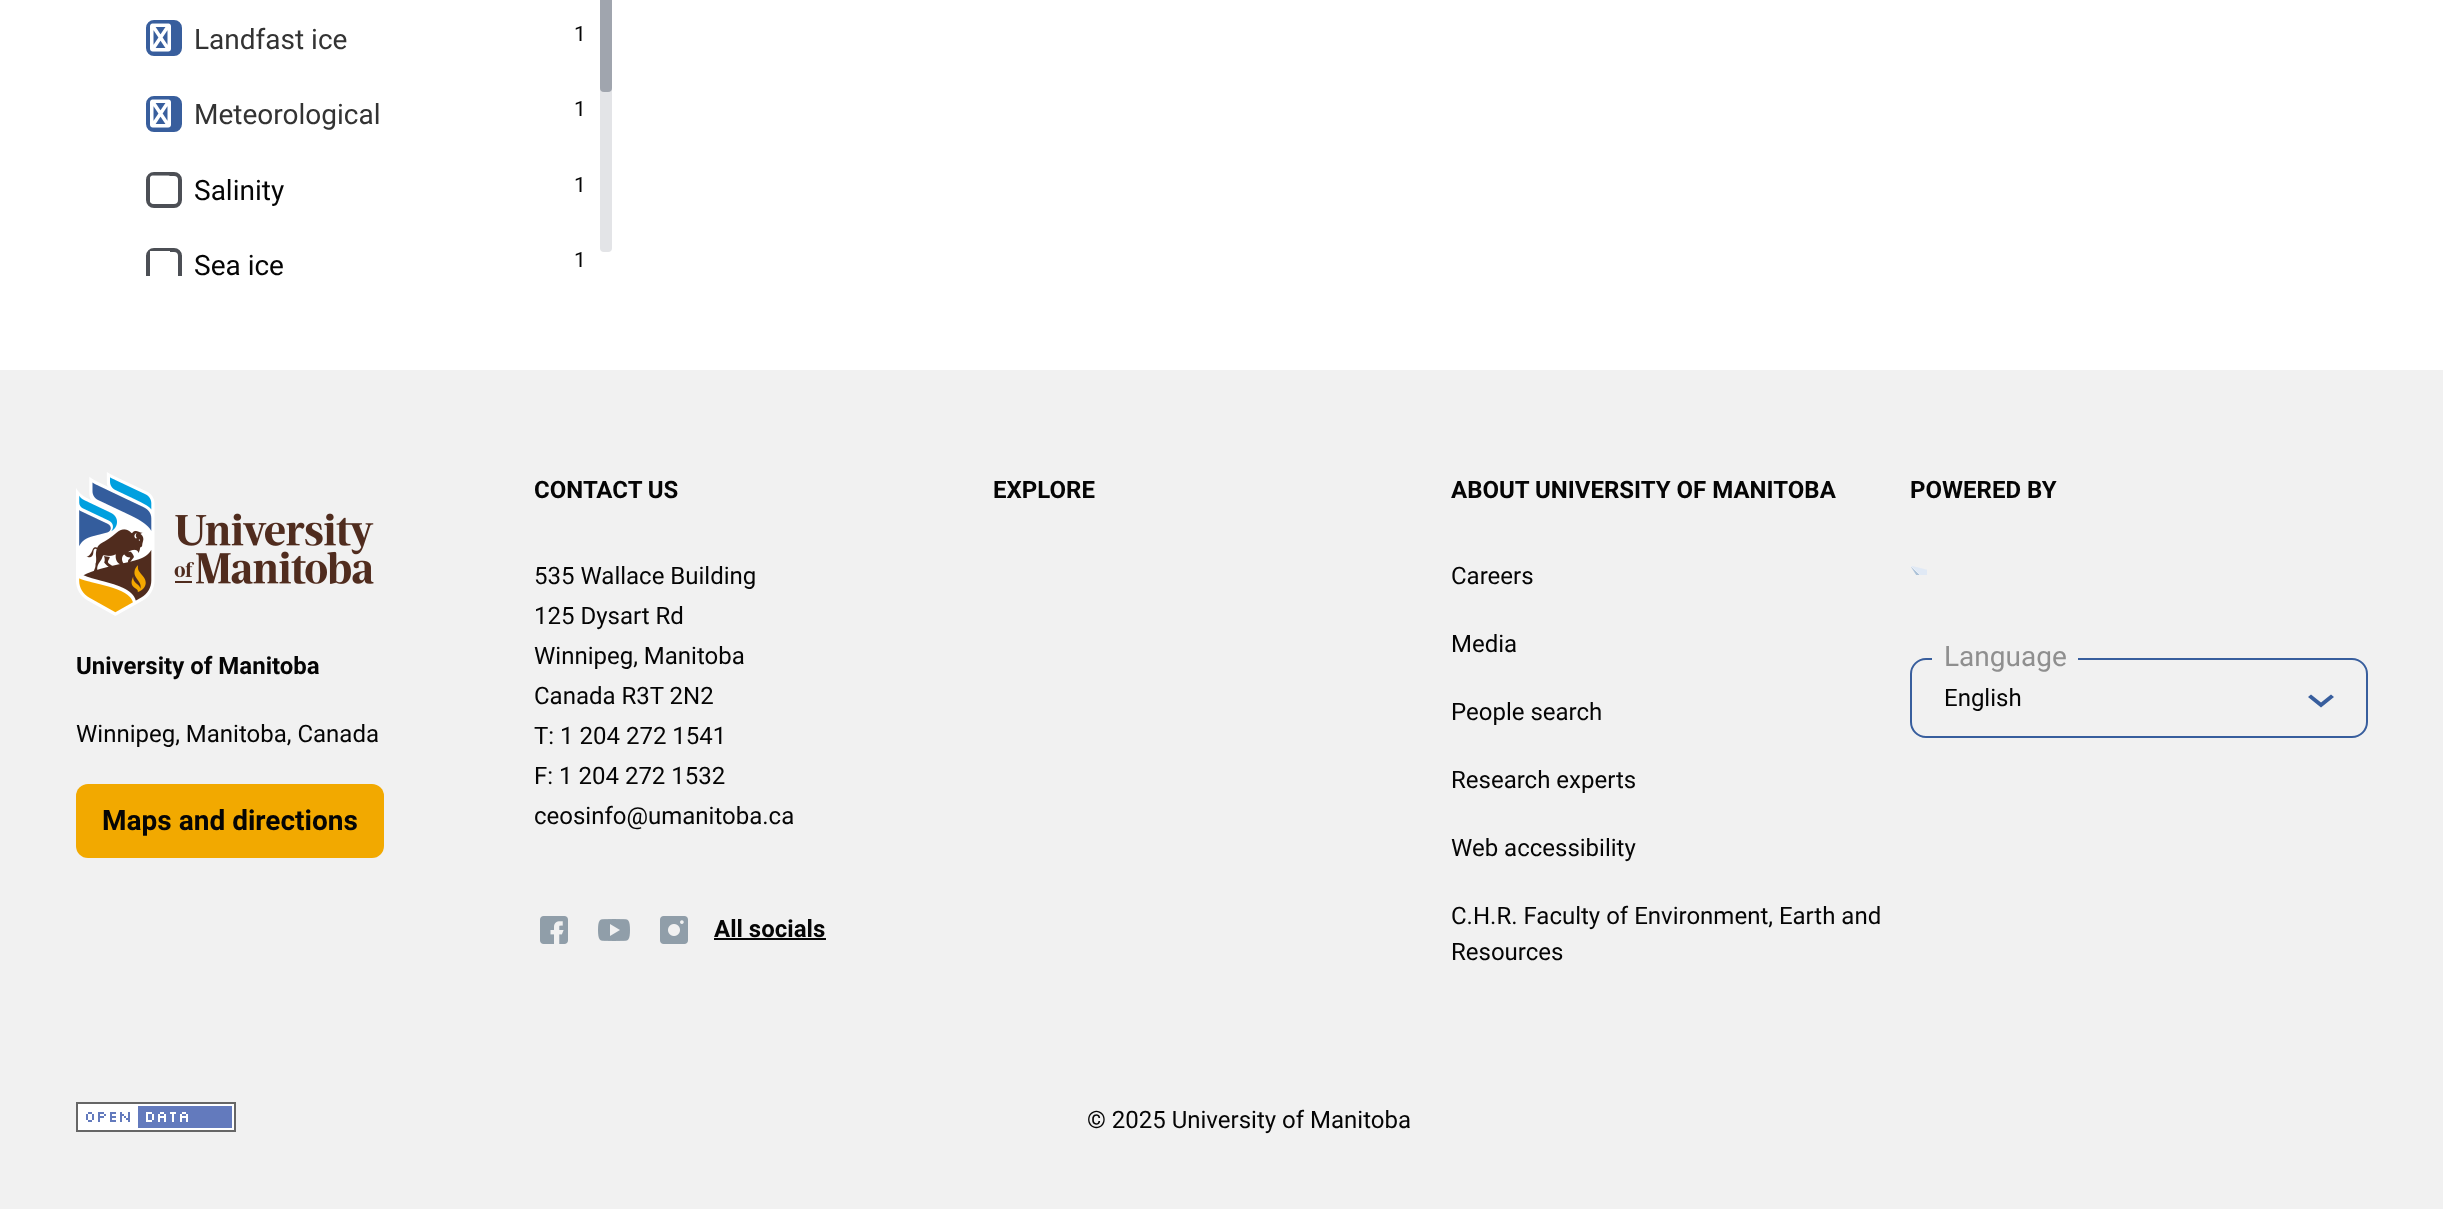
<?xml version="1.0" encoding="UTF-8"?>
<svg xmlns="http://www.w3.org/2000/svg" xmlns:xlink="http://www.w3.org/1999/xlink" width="2443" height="1209">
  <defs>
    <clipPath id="clip1"><rect x="146" width="470" height="276" /></clipPath>
  </defs>
  <rect width="100%" height="100%" fill="#f1f1f1" />
  <rect width="2443" height="370" fill="#ffffff" />
  <rect x="148" y="22" width="32" height="32" rx="6" fill="#385e9d" stroke="#385e9d" stroke-width="4" />
  <image x="150" y="23" width="21" height="29" xlink:href="image1.png" />
  <rect x="148" y="98" width="32" height="32" rx="6" fill="#385e9d" stroke="#385e9d" stroke-width="4" />
  <image x="150" y="99" width="21" height="29" xlink:href="image1.png" />
  <rect x="148" y="174" width="32" height="32" rx="6" fill="none" stroke="#4c4f55" stroke-width="4" />
  <image x="150" y="175" width="20" height="29" xlink:href="image2.png" />
  <g clip-path="url(#clip1)">
    <rect x="148" y="250" width="32" height="32" rx="6" fill="none" stroke="#4c4f55" stroke-width="4" />
  </g>
  <rect x="150" y="251" width="20" height="5" fill="#ffffff" />
  <rect x="600" y="-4" width="12" height="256" rx="4" fill="#e3e4e7" />
  <rect x="600" y="-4" width="12" height="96" rx="4" fill="#a0a5ae" />
  <image x="540" y="916" width="28" height="28" xlink:href="image3.png" />
  <image x="598" y="919" width="32" height="22" xlink:href="image4.png" />
  <image x="660" y="916" width="28" height="28" xlink:href="image5.png" />
  <rect x="714" y="938" width="112" height="2" fill="#050505" />
  <image x="1911" y="566" width="16" height="9" xlink:href="image6.png" />
  <rect x="1911" y="659" width="456" height="78" rx="15" fill="none" stroke="#385e9d" stroke-width="2" />
  <rect x="1932" y="658" width="146" height="2" fill="#f1f1f1" />
  <path d="M 2308 697 l 3 -2.5 l 10 8 l 10 -8 l 3 2.5 l -13 10.5 z" fill="#385e9d" />
  <image x="76" y="472" width="298" height="144" xlink:href="image7.png" />
  <rect x="76" y="784" width="308" height="74" rx="12" fill="#f2a900" />
  <image x="76" y="1102" width="160" height="30" xlink:href="image8.png" />
  <text x="194" y="49" style="font-family: Roboto; font-size: 28px; fill: #333333">Landfast ice</text>
  <text x="574" y="41" style="font-family: Roboto; font-size: 21px; fill: #050505">1</text>
  <text x="194" y="124" style="font-family: Roboto; font-size: 28px; fill: #333333">Meteorological</text>
  <text x="574" y="116" style="font-family: Roboto; font-size: 21px; fill: #050505">1</text>
  <text x="194" y="200" style="font-family: Roboto; font-size: 28px; fill: #050505">Salinity</text>
  <text x="574" y="192" style="font-family: Roboto; font-size: 21px; fill: #050505">1</text>
  <text x="194" y="275" style="font-family: Roboto; font-size: 28px; fill: #050505">Sea ice</text>
  <text x="574" y="267" style="font-family: Roboto; font-size: 21px; fill: #050505">1</text>
  <text x="534" y="498" style="font-family: Roboto; font-size: 24px; font-weight: bold; fill: #050505">CONTACT US</text>
  <text x="534" y="584" style="font-family: Roboto; font-size: 24px; fill: #050505">535 Wallace Building</text>
  <text x="534" y="624" style="font-family: Roboto; font-size: 24px; fill: #050505">125 Dysart Rd</text>
  <text x="534" y="664" style="font-family: Roboto; font-size: 24px; fill: #050505">Winnipeg, Manitoba</text>
  <text x="534" y="704" style="font-family: Roboto; font-size: 24px; fill: #050505">Canada R3T 2N2</text>
  <text x="534" y="744" style="font-family: Roboto; font-size: 24px; fill: #050505">T: 1 204 272 1541</text>
  <text x="534" y="784" style="font-family: Roboto; font-size: 24px; fill: #050505">F: 1 204 272 1532</text>
  <text x="534" y="824" style="font-family: Roboto; font-size: 24px; fill: #050505">ceosinfo@umanitoba.ca</text>
  <text x="714" y="937" style="font-family: Roboto; font-size: 24px; font-weight: bold; fill: #050505">All socials</text>
  <text x="993" y="498" style="font-family: Roboto; font-size: 24px; font-weight: bold; fill: #050505">EXPLORE</text>
  <text x="1451" y="498" style="font-family: Roboto; font-size: 24px; font-weight: bold; fill: #050505">ABOUT UNIVERSITY OF MANITOBA</text>
  <text x="1451" y="584" style="font-family: Roboto; font-size: 24px; fill: #050505">Careers</text>
  <text x="1451" y="652" style="font-family: Roboto; font-size: 24px; fill: #050505">Media</text>
  <text x="1451" y="720" style="font-family: Roboto; font-size: 24px; fill: #050505">People search</text>
  <text x="1451" y="788" style="font-family: Roboto; font-size: 24px; fill: #050505">Research experts</text>
  <text x="1451" y="856" style="font-family: Roboto; font-size: 24px; fill: #050505">Web accessibility</text>
  <text x="1451" y="924" style="font-family: Roboto; font-size: 24px; fill: #050505">C.H.R. Faculty of Environment, Earth and</text>
  <text x="1451" y="960" style="font-family: Roboto; font-size: 24px; fill: #050505">Resources</text>
  <text x="1910" y="498" style="font-family: Roboto; font-size: 24px; font-weight: bold; fill: #050505">POWERED BY</text>
  <text x="1944" y="666" style="font-family: Roboto; font-size: 28px; fill: #8f8f8f">Language</text>
  <text x="1944" y="706" style="font-family: Roboto; font-size: 24px; fill: #050505">English</text>
  <text x="76" y="674" style="font-family: Roboto; font-size: 24px; font-weight: bold; fill: #050505">University of Manitoba</text>
  <text x="76" y="742" style="font-family: Roboto; font-size: 24px; fill: #050505">Winnipeg, Manitoba, Canada</text>
  <text x="102" y="830" style="font-family: Roboto; font-size: 28px; font-weight: bold; fill: #050505">Maps and directions</text>
  <text x="1087" y="1128" style="font-family: Roboto; font-size: 24px; fill: #050505">© 2025 University of Manitoba</text>
</svg>
